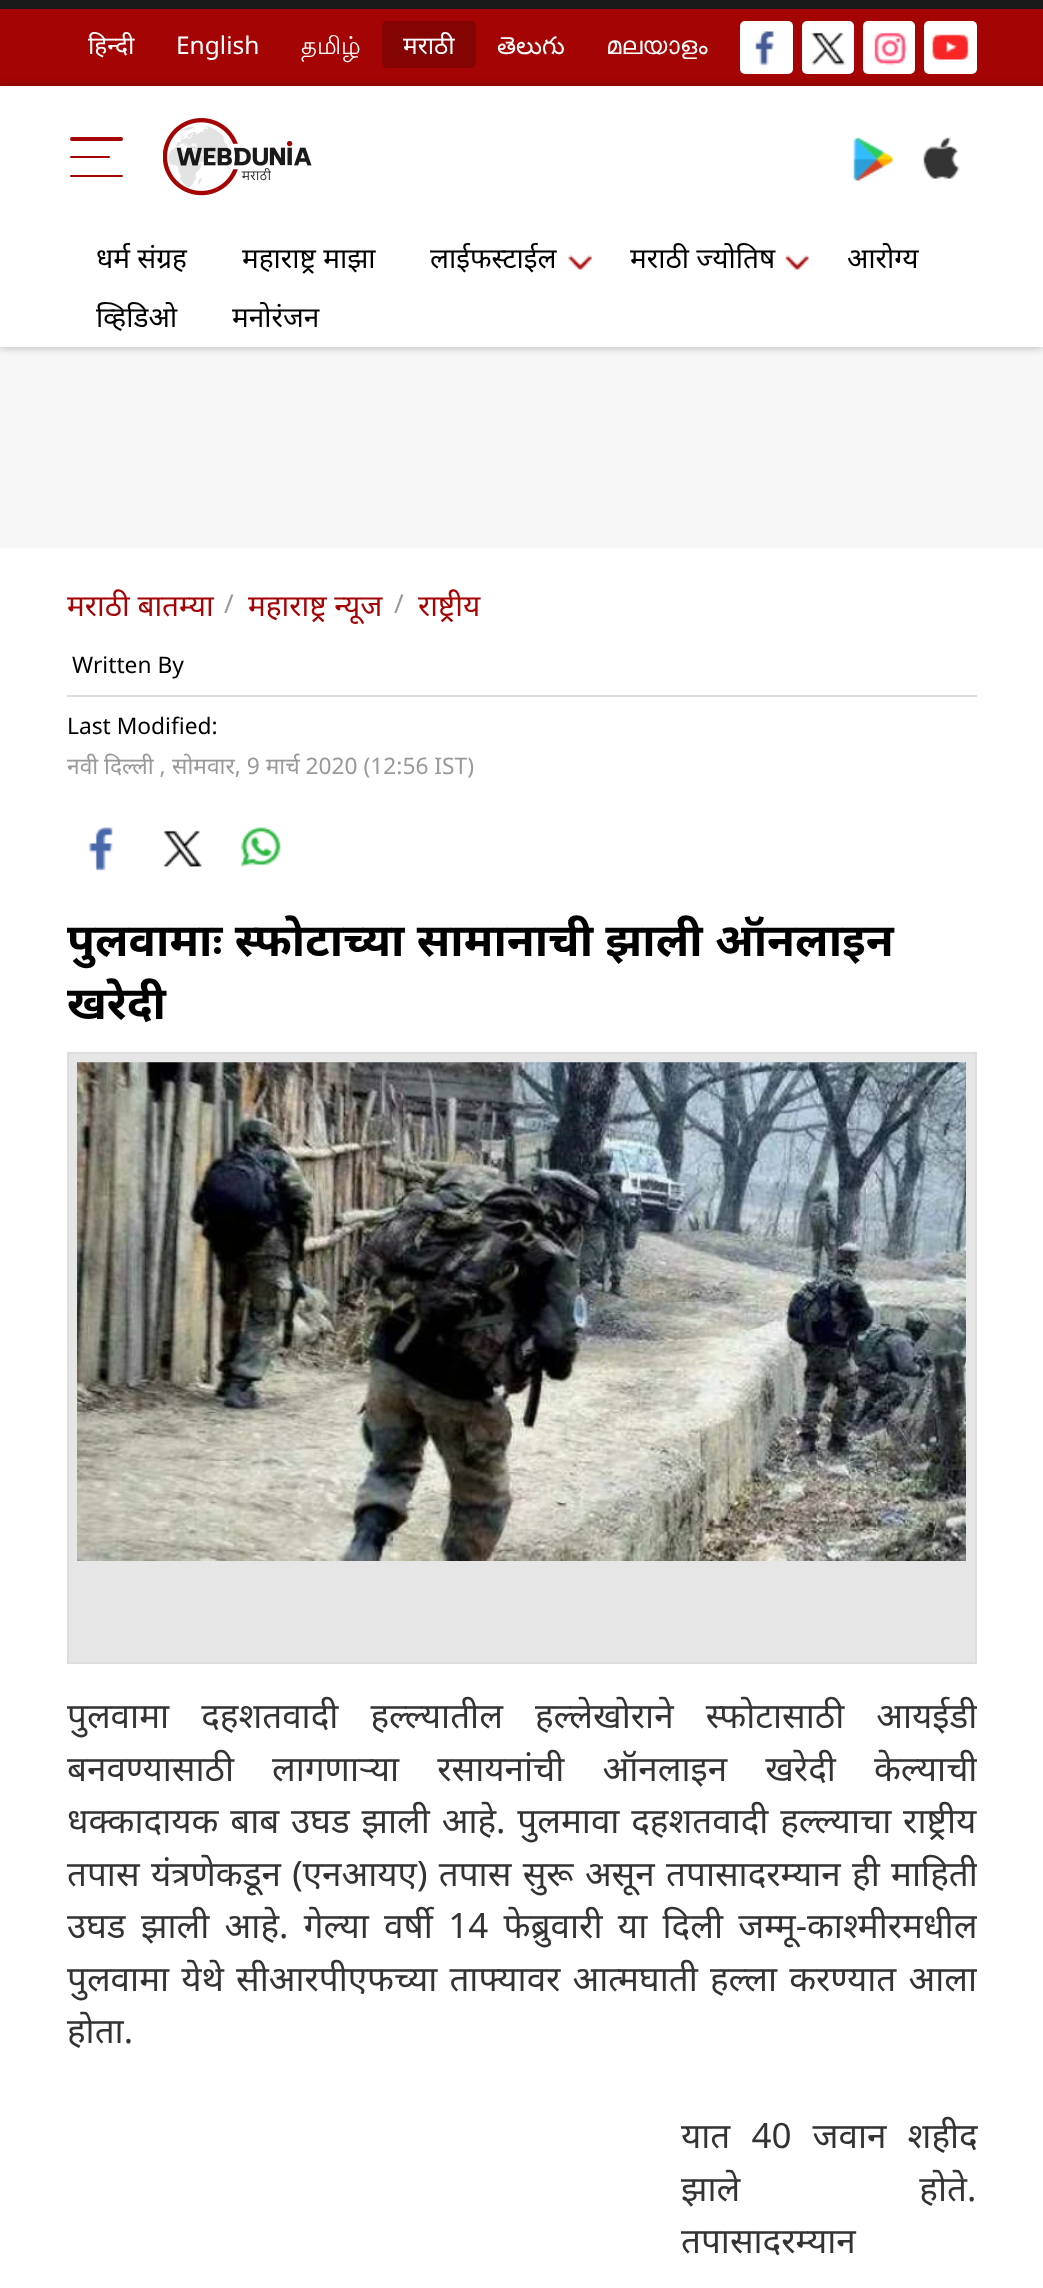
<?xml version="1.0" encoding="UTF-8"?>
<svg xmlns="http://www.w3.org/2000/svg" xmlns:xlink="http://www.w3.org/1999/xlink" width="1043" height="2288">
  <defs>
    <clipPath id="clip1"><rect x="67" y="908" width="910" height="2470" /></clipPath>
  </defs>
  <rect width="100%" height="100%" fill="#ffffff" />
  <rect y="9" width="1043" height="77" fill="#a50404" />
  <rect width="1043" height="9" fill="#1a1a1a" />
  <rect x="382" y="21" width="94" height="47" rx="5" fill="#840303" />
  <rect x="740" y="21" width="53" height="53" rx="5" fill="#ffffff" />
  <image x="755" y="31" width="19" height="35" xlink:href="image1.png" />
  <rect x="802" y="21" width="52" height="53" rx="5" fill="#ffffff" />
  <image x="811" y="32" width="35" height="34" xlink:href="image2.png" />
  <rect x="863" y="21" width="52" height="53" rx="5" fill="#ffffff" />
  <image x="874" y="32" width="33" height="34" xlink:href="image3.png" />
  <rect x="924" y="21" width="53" height="53" rx="5" fill="#ffffff" />
  <image x="932" y="34" width="37" height="26" xlink:href="image4.png" />
  <rect y="347" width="1043" height="201" fill="#f7f7f7" />
  <rect y="86" width="1043" height="261" fill="#000000" fill-opacity="0.3" filter="blur(5px)" />
  <rect y="86" width="1043" height="261" fill="#ffffff" />
  <rect x="70" y="137" width="53" height="4" rx="2" fill="#a50404" />
  <rect x="70" y="156" width="40" height="2" rx="1" fill="#a50404" />
  <rect x="70" y="175" width="53" height="2" rx="1" fill="#a50404" />
  <image x="163" y="118" width="149" height="78" xlink:href="image5.png" />
  <image x="853" y="137" width="40" height="44" xlink:href="image6.png" />
  <image x="923" y="136" width="37" height="43" xlink:href="image7.png" />
  <image x="568" y="255" width="24" height="15" xlink:href="image8.png" />
  <image x="785" y="255" width="24" height="15" xlink:href="image9.png" />
  <rect x="67" y="695" width="910" height="2" fill="#dddddd" />
  <image x="88" y="827" width="25" height="44" xlink:href="image10.png" />
  <image x="163" y="830" width="39" height="37" xlink:href="image11.png" />
  <image x="241" y="827" width="40" height="40" xlink:href="image12.png" />
  <rect x="68" y="1053" width="908" height="610" fill="#e6e6e6" stroke="#dddddd" stroke-width="2" />
  <image x="77" y="1062" width="889" height="499" xlink:href="image13.png" />
  <text x="88" y="54" style="font-family: Noto Sans; font-size: 24.5px; fill: #ffffff">हिन्दी</text>
  <text x="176" y="54" style="font-family: Noto Sans; font-size: 24.5px; fill: #ffffff">English</text>
  <text x="301" y="54" style="font-family: Lohit Tamil; font-size: 24.5px; fill: #ffffff">தமிழ்</text>
  <text x="403" y="54" style="font-family: Noto Sans; font-size: 24.5px; fill: #ffffff">मराठी</text>
  <text x="497" y="54" style="font-family: Noto Sans Telugu; font-size: 24.5px; fill: #ffffff">తెలుగు</text>
  <text x="606" y="54" style="font-family: FreeSans; font-size: 24.5px; fill: #ffffff">മലയാളം</text>
  <text x="96" y="268" style="font-family: Noto Sans; font-size: 28px; fill: #000000">धर्म संग्रह</text>
  <text x="242" y="268" style="font-family: Noto Sans; font-size: 28px; fill: #000000">महाराष्ट्र माझा</text>
  <text x="430" y="268" style="font-family: Noto Sans; font-size: 28px; fill: #000000">लाईफस्टाईल</text>
  <text x="630" y="268" style="font-family: Noto Sans; font-size: 28px; fill: #000000">मराठी ज्योतिष</text>
  <text x="847" y="268" style="font-family: Noto Sans; font-size: 28px; fill: #000000">आरोग्य</text>
  <text x="96" y="327" style="font-family: Noto Sans; font-size: 28px; fill: #000000">व्हिडिओ</text>
  <text x="232" y="327" style="font-family: Noto Sans; font-size: 28px; fill: #000000">मनोरंजन</text>
  <text x="67" y="616" style="font-family: Noto Sans; font-size: 29.75px; fill: #a50404">मराठी बातम्या</text>
  <text x="224" y="613" style="font-family: Noto Sans; font-size: 26px; fill: #999999">/</text>
  <text x="248" y="616" style="font-family: Noto Sans; font-size: 29.75px; fill: #a50404">महाराष्ट्र न्यूज</text>
  <text x="394" y="613" style="font-family: Noto Sans; font-size: 26px; fill: #999999">/</text>
  <text x="418" y="616" style="font-family: Noto Sans; font-size: 29.75px; fill: #a50404">राष्ट्रीय</text>
  <text x="72" y="673" style="font-family: Noto Sans; font-size: 22.75px; fill: #000000">Written By</text>
  <text x="67" y="734" style="font-family: Noto Sans; font-size: 22.75px; fill: #000000">Last Modified:</text>
  <text x="67" y="774" style="font-family: Noto Sans; font-size: 22.75px; fill: #999999">नवी दिल्ली ,</text>
  <text x="172" y="774" style="font-family: Noto Sans; font-size: 22.75px; fill: #999999">सोमवार, 9 मार्च 2020 (12:56 IST)</text>
  <g clip-path="url(#clip1)">
    <text x="67" y="956" word-spacing="0.5" style="font-family: Noto Sans; font-size: 45.5px; font-weight: bold; fill: #000000">पुलवामाः स्फोटाच्या सामानाची झाली ऑनलाइन</text>
    <text x="67" y="1019" style="font-family: Noto Sans; font-size: 45.5px; font-weight: bold; fill: #000000">खरेदी</text>
    <text x="67" y="1728" word-spacing="23" style="font-family: Noto Sans; font-size: 35px; fill: #333333">पुलवामा दहशतवादी हल्ल्यातील हल्लेखोराने स्फोटासाठी आयईडी</text>
    <text x="67" y="1781" word-spacing="29" style="font-family: Noto Sans; font-size: 35px; fill: #333333">बनवण्यासाठी लागणार्‍या रसायनांची ऑनलाइन खरेदी केल्याची</text>
  </g>
  <text x="67" y="1833" word-spacing="2.75" style="font-family: Noto Sans; font-size: 35px; fill: #333333">धक्कादायक बाब उघड झाली आहे. पुलमावा दहशतवादी हल्ल्याचा राष्ट्रीय</text>
  <g clip-path="url(#clip1)">
    <text x="67" y="1886" word-spacing="2.25" style="font-family: Noto Sans; font-size: 35px; fill: #333333">तपास यंत्रणेकडून (एनआयए) तपास सुरू असून तपासादरम्यान ही माहिती</text>
    <text x="67" y="1938" word-spacing="6.25" style="font-family: Noto Sans; font-size: 35px; fill: #333333">उघड झाली आहे. गेल्या वर्षी 14 फेब्रुवारी या दिली जम्मू-काश्मीरमधील</text>
    <text x="67" y="1991" word-spacing="3" style="font-family: Noto Sans; font-size: 35px; fill: #333333">पुलवामा येथे सीआरपीएफच्या ताफ्यावर आत्मघाती हल्ला करण्यात आला</text>
    <text x="67" y="2043" style="font-family: Noto Sans; font-size: 35px; fill: #333333">होता.</text>
  </g>
  <text x="681" y="2148" word-spacing="12" style="font-family: Noto Sans; font-size: 35px; fill: #333333">यात 40 जवान शहीद</text>
  <text x="681" y="2201" word-spacing="170" style="font-family: Noto Sans; font-size: 35px; fill: #333333">झाले होते.</text>
  <text x="681" y="2253" style="font-family: Noto Sans; font-size: 35px; fill: #333333">तपासादरम्यान</text>
</svg>
